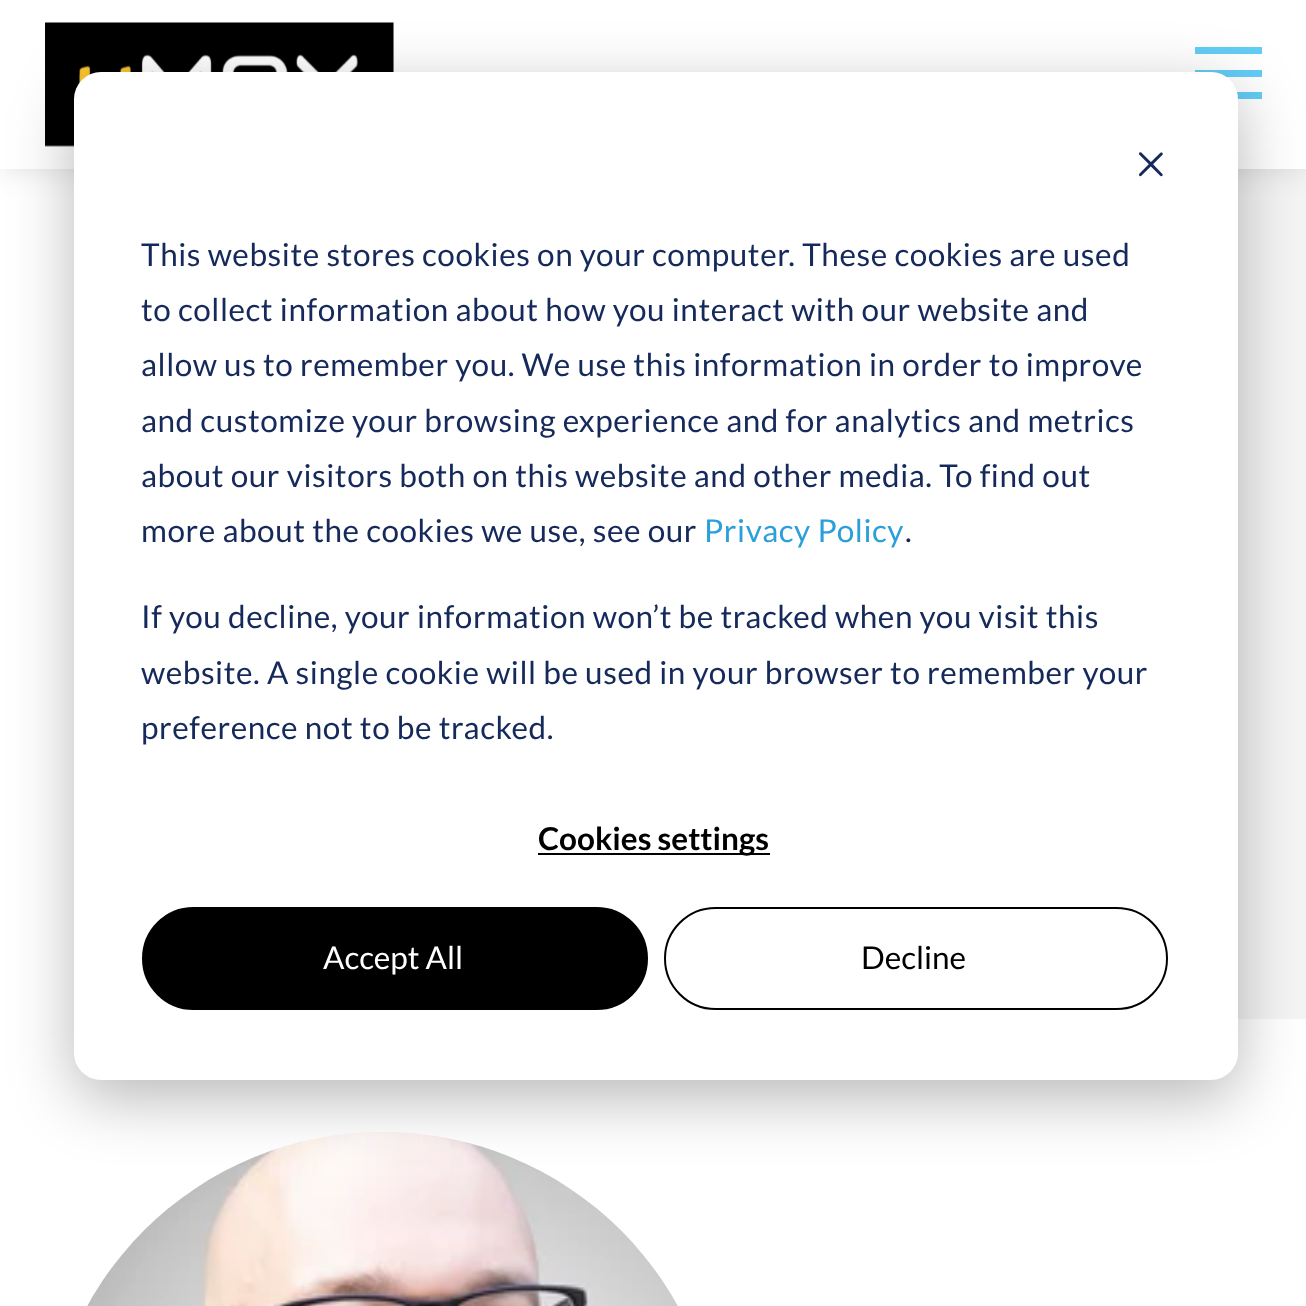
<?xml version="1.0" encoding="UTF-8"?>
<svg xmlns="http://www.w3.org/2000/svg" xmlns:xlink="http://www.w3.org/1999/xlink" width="1306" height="1306">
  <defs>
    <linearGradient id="g1" gradientUnits="userSpaceOnUse" x1="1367" y1="334" x2="-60" y2="854"><stop offset="0.45" stop-color="#f4f4f4" /><stop offset="0.45" stop-color="#ffffff" /></linearGradient>
  </defs>
  <rect width="100%" height="100%" fill="#ffffff" />
  <rect x="580" y="169" width="726" height="850" fill="url(#g1)" />
  <rect y="2" width="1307" height="169" fill="#000000" fill-opacity="0.1" filter="blur(13.5px)" />
  <rect width="1306" height="169" fill="#ffffff" />
  <image x="45" y="22" width="349" height="125" xlink:href="image1.png" />
  <rect x="1195" y="70" width="67" height="7" fill="#63cdf6" />
  <rect x="1195" y="47" width="67" height="7" fill="#63cdf6" />
  <rect x="1237" y="92" width="25" height="7" fill="#63cdf6" />
  <image x="87" y="1132" width="591" height="174" xlink:href="image2.png" />
  <rect x="74" y="90" width="1164" height="1008" rx="27" fill="#000000" fill-opacity="0.28" filter="blur(31.5px)" />
  <rect x="74" y="72" width="1164" height="1008" rx="27" fill="#ffffff" />
  <image x="1139" y="152" width="24" height="25" xlink:href="image3.png" />
  <rect x="538" y="853" width="232" height="2" fill="#000000" />
  <rect x="143" y="908" width="504" height="101" rx="50.5" fill="#000000" stroke="#000000" stroke-width="2" />
  <rect x="665" y="908" width="502" height="101" rx="50.5" fill="none" stroke="#000000" stroke-width="2" />
  <text x="141" y="266" style="font-family: Lato; font-size: 31.5px; letter-spacing: 0.55px; fill: #15295a">This website stores cookies on your computer. These cookies are used</text>
  <text x="141" y="321" style="font-family: Lato; font-size: 31.5px; letter-spacing: 0.55px; fill: #15295a">to collect information about how you interact with our website and</text>
  <text x="141" y="376" style="font-family: Lato; font-size: 31.5px; letter-spacing: 0.55px; fill: #15295a">allow us to remember you. We use this information in order to improve</text>
  <text x="141" y="432" style="font-family: Lato; font-size: 31.5px; letter-spacing: 0.55px; fill: #15295a">and customize your browsing experience and for analytics and metrics</text>
  <text x="141" y="487" style="font-family: Lato; font-size: 31.5px; letter-spacing: 0.55px; fill: #15295a">about our visitors both on this website and other media. To find out</text>
  <text x="141" y="542" style="font-family: Lato; font-size: 31.5px; letter-spacing: 0.55px; fill: #15295a">more about the cookies we use, see our</text>
  <text x="704" y="542" style="font-family: Lato; font-size: 31.5px; letter-spacing: 0.55px; fill: #2b9fda">Privacy Policy</text>
  <text x="905" y="542" style="font-family: Lato; font-size: 31.5px; letter-spacing: 0.55px; fill: #15295a">.</text>
  <text x="141" y="628" style="font-family: Lato; font-size: 31.5px; letter-spacing: 0.55px; fill: #15295a">If you decline, your information won’t be tracked when you visit this</text>
  <text x="141" y="684" style="font-family: Lato; font-size: 31.5px; letter-spacing: 0.55px; fill: #15295a">website. A single cookie will be used in your browser to remember your</text>
  <text x="141" y="739" style="font-family: Lato; font-size: 31.5px; letter-spacing: 0.55px; fill: #15295a">preference not to be tracked.</text>
  <text x="538" y="850" style="font-family: Lato; font-size: 31.5px; font-weight: bold; fill: #000000">Cookies settings</text>
  <text x="323" y="969" style="font-family: Lato; font-size: 31.5px; fill: #ffffff">Accept All</text>
  <text x="861" y="969" style="font-family: Lato; font-size: 31.5px; fill: #000000">Decline</text>
</svg>
